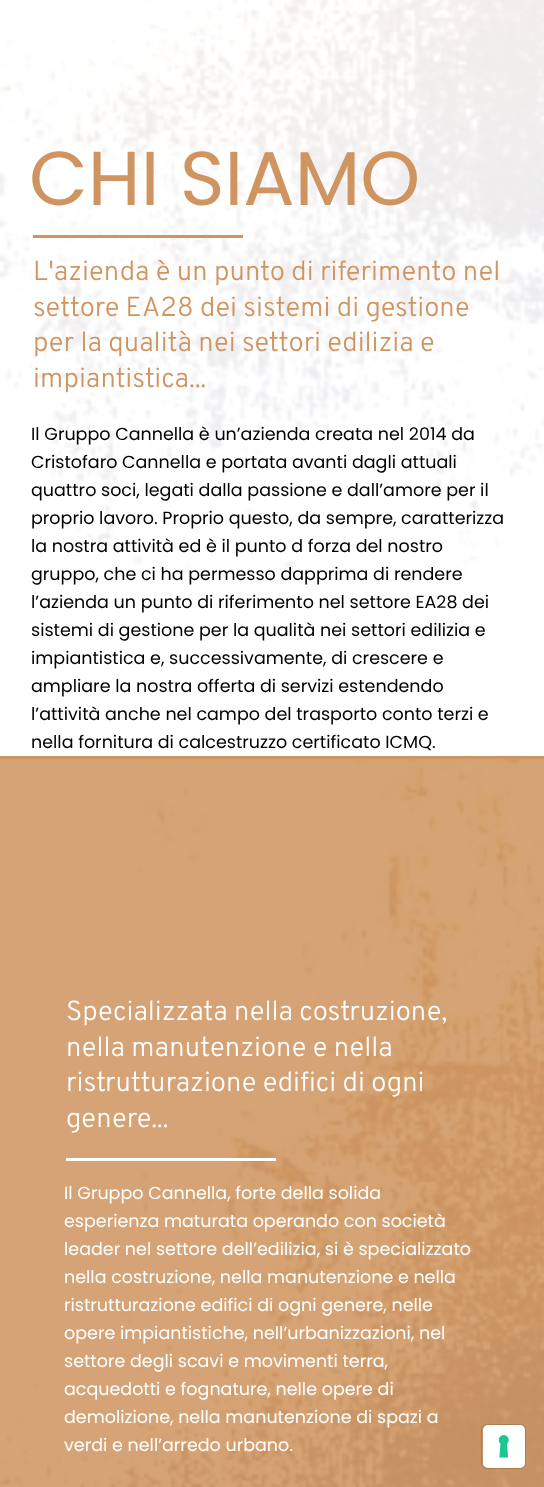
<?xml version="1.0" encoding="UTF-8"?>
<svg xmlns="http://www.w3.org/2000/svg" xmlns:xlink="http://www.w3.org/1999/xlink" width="544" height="1487">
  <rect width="100%" height="100%" fill="#ffffff" />
  <image x="0" y="0" width="544" height="583" xlink:href="image1.png" />
  <rect x="33" y="235" width="210" height="3" fill="#cf945f" />
  <rect y="756" width="544" height="731" fill="#cf945f" />
  <image x="0" y="759" width="544" height="728" xlink:href="image2.png" />
  <rect x="66" y="1158" width="210" height="3" fill="#ffffff" />
  <rect x="481.5" y="1424.5" width="44" height="44" rx="5.5" fill="none" stroke="#000000" stroke-opacity="0.15" />
  <rect x="483" y="1425" width="42" height="43" rx="5" fill="#ffffff" />
  <image x="498" y="1435" width="11" height="23" xlink:href="image3.png" />
  <text x="29" y="205" style="font-family: Poppins; font-size: 76.25px; fill: #cf945f">CHI SIAMO</text>
  <text x="33" y="280" style="font-family: Overpass; font-size: 27.5px; font-weight: 300; fill: #cf945f">L'azienda è un punto di riferimento nel</text>
  <text x="33" y="316" style="font-family: Overpass; font-size: 27.5px; font-weight: 300; fill: #cf945f">settore EA28 dei sistemi di gestione</text>
  <text x="33" y="351" style="font-family: Overpass; font-size: 27.5px; font-weight: 300; fill: #cf945f">per la qualità nei settori edilizia e</text>
  <text x="33" y="387" style="font-family: Overpass; font-size: 27.5px; font-weight: 300; fill: #cf945f">impiantistica...</text>
  <text x="31" y="440" style="font-family: Poppins; font-size: 17.5px; fill: #000000">Il Gruppo Cannella è un’azienda creata nel 2014 da</text>
  <text x="31" y="468" style="font-family: Poppins; font-size: 17.5px; fill: #000000">Cristofaro Cannella e portata avanti dagli attuali</text>
  <text x="31" y="496" style="font-family: Poppins; font-size: 17.5px; fill: #000000">quattro soci, legati dalla passione e dall’amore per il</text>
  <text x="31" y="524" style="font-family: Poppins; font-size: 17.5px; fill: #000000">proprio lavoro. Proprio questo, da sempre, caratterizza</text>
  <text x="31" y="552" style="font-family: Poppins; font-size: 17.5px; fill: #000000">la nostra attività ed è il punto d forza del nostro</text>
  <text x="31" y="580" style="font-family: Poppins; font-size: 17.5px; fill: #000000">gruppo, che ci ha permesso dapprima di rendere</text>
  <text x="31" y="608" style="font-family: Poppins; font-size: 17.5px; fill: #000000">l’azienda un punto di riferimento nel settore EA28 dei</text>
  <text x="31" y="636" style="font-family: Poppins; font-size: 17.5px; fill: #000000">sistemi di gestione per la qualità nei settori edilizia e</text>
  <text x="31" y="664" style="font-family: Poppins; font-size: 17.5px; fill: #000000">impiantistica e, successivamente, di crescere e</text>
  <text x="31" y="692" style="font-family: Poppins; font-size: 17.5px; fill: #000000">ampliare la nostra offerta di servizi estendendo</text>
  <text x="31" y="720" style="font-family: Poppins; font-size: 17.5px; fill: #000000">l’attività anche nel campo del trasporto conto terzi e</text>
  <text x="31" y="748" style="font-family: Poppins; font-size: 17.5px; fill: #000000">nella fornitura di calcestruzzo certificato ICMQ.</text>
  <text x="66" y="1020" style="font-family: Overpass; font-size: 27.5px; font-weight: 300; fill: #ffffff">Specializzata nella costruzione,</text>
  <text x="66" y="1056" style="font-family: Overpass; font-size: 27.5px; font-weight: 300; fill: #ffffff">nella manutenzione e nella</text>
  <text x="66" y="1091" style="font-family: Overpass; font-size: 27.5px; font-weight: 300; fill: #ffffff">ristrutturazione edifici di ogni</text>
  <text x="66" y="1127" style="font-family: Overpass; font-size: 27.5px; font-weight: 300; fill: #ffffff">genere...</text>
  <text x="64" y="1199" style="font-family: Poppins; font-size: 17.5px; fill: #ffffff">Il Gruppo Cannella, forte della solida</text>
  <text x="64" y="1227" style="font-family: Poppins; font-size: 17.5px; fill: #ffffff">esperienza maturata operando con società</text>
  <text x="64" y="1255" style="font-family: Poppins; font-size: 17.5px; fill: #ffffff">leader nel settore dell’edilizia, si è specializzato</text>
  <text x="64" y="1283" style="font-family: Poppins; font-size: 17.5px; fill: #ffffff">nella costruzione, nella manutenzione e nella</text>
  <text x="64" y="1311" style="font-family: Poppins; font-size: 17.5px; fill: #ffffff">ristrutturazione edifici di ogni genere, nelle</text>
  <text x="64" y="1339" style="font-family: Poppins; font-size: 17.5px; fill: #ffffff">opere impiantistiche, nell’urbanizzazioni, nel</text>
  <text x="64" y="1367" style="font-family: Poppins; font-size: 17.5px; fill: #ffffff">settore degli scavi e movimenti terra,</text>
  <text x="64" y="1395" style="font-family: Poppins; font-size: 17.5px; fill: #ffffff">acquedotti e fognature, nelle opere di</text>
  <text x="64" y="1423" style="font-family: Poppins; font-size: 17.5px; fill: #ffffff">demolizione, nella manutenzione di spazi a</text>
  <text x="64" y="1451" style="font-family: Poppins; font-size: 17.5px; fill: #ffffff">verdi e nell’arredo urbano.</text>
</svg>
